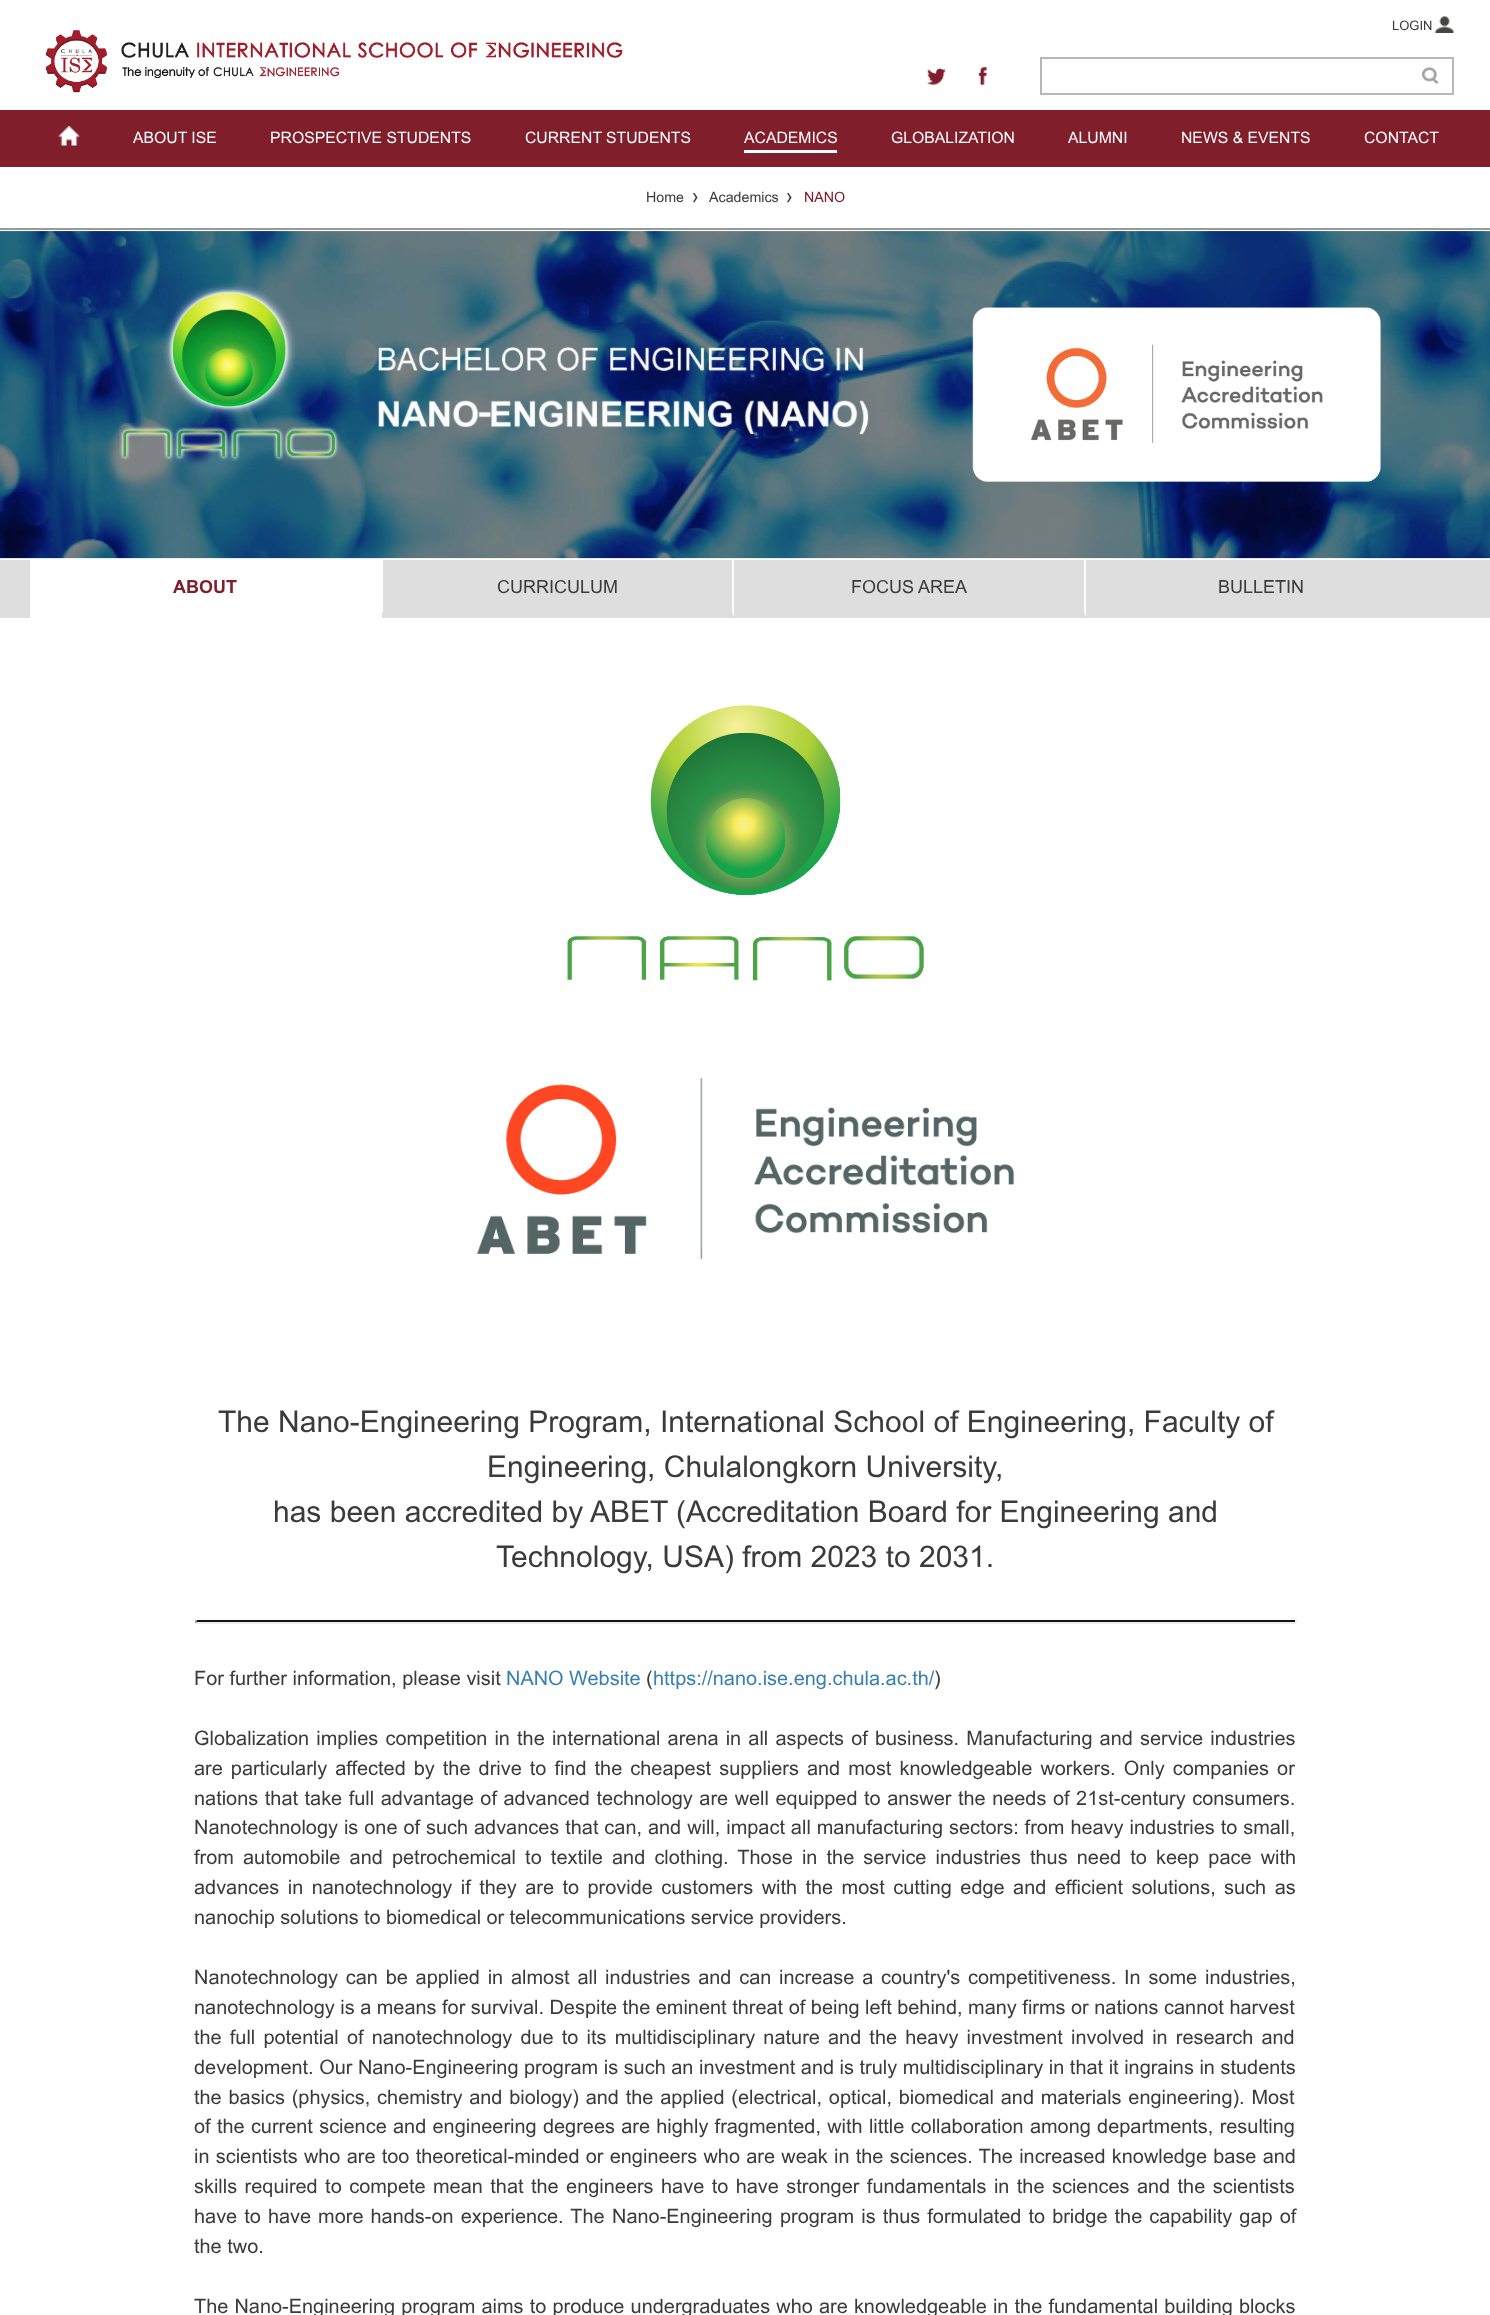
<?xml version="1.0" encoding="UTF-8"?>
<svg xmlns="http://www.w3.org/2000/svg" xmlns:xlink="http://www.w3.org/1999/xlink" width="1490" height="2315">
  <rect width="100%" height="100%" fill="#ffffff" />
  <image x="1435" y="16" width="19" height="17" xlink:href="image1.png" />
  <image x="927" y="68" width="19" height="17" xlink:href="image2.png" />
  <image x="978" y="66" width="10" height="19" xlink:href="image3.png" />
  <rect x="1041" y="58" width="412" height="36" fill="none" stroke="#b7b7b7" stroke-width="2" />
  <image x="1422" y="67" width="17" height="17" xlink:href="image4.png" />
  <image x="45" y="30" width="578" height="63" xlink:href="image5.png" />
  <rect y="110" width="1490" height="57" fill="#801e2b" />
  <image x="58" y="126" width="22" height="20" xlink:href="image6.png" />
  <rect x="744" y="150" width="93" height="3" fill="#ffffff" />
  <rect y="228" width="1490" height="2" fill="#999999" />
  <image x="0" y="231" width="1490" height="328" xlink:href="image7.png" />
  <rect y="560" width="1490" height="58" fill="#dedede" />
  <rect x="30" y="560" width="353" height="58" fill="#ffffff" />
  <path d="M 734 560 v 58 l -2 -6 v -52 z" fill="#ffffff" />
  <path d="M 734 618 h -352 v -6 h 350 z" fill="#dedede" />
  <path d="M 1086 560 v 58 l -2 -6 v -52 z" fill="#ffffff" />
  <path d="M 1086 618 h -352 v -6 h 350 z" fill="#dedede" />
  <image x="567" y="705" width="357" height="276" xlink:href="image8.png" />
  <image x="476" y="1078" width="539" height="182" xlink:href="image9.png" />
  <rect x="195" y="1620" width="1101" height="2" fill="#141414" />
  <rect x="1295" y="1620" width="2" height="3" fill="#eeeeee" />
  <rect x="195" y="1622" width="1101" height="2" fill="#eeeeee" />
  <rect x="195" y="1620" width="2" height="3" fill="#9f9f9f" />
  <text x="1392" y="30" style="font-family: Arial; font-size: 13px; fill: #3b3b3b">LOGIN</text>
  <text x="133" y="143" style="font-family: Arial; font-size: 15.75px; fill: #ffffff">ABOUT ISE</text>
  <text x="270" y="143" style="font-family: Arial; font-size: 15.75px; fill: #ffffff">PROSPECTIVE STUDENTS</text>
  <text x="525" y="143" style="font-family: Arial; font-size: 15.75px; fill: #ffffff">CURRENT STUDENTS</text>
  <text x="744" y="143" style="font-family: Arial; font-size: 15.75px; fill: #ffffff">ACADEMICS</text>
  <text x="891" y="143" style="font-family: Arial; font-size: 15.75px; fill: #ffffff">GLOBALIZATION</text>
  <text x="1068" y="143" style="font-family: Arial; font-size: 15.75px; fill: #ffffff">ALUMNI</text>
  <text x="1181" y="143" style="font-family: Arial; font-size: 15.75px; fill: #ffffff">NEWS &amp; EVENTS</text>
  <text x="1364" y="143" style="font-family: Arial; font-size: 15.75px; fill: #ffffff">CONTACT</text>
  <text x="646" y="202" style="font-family: Arial; font-size: 14.25px; fill: #3b3b3b">Home</text>
  <text x="692" y="203" style="font-family: Arial; font-size: 21px; letter-spacing: 3px; fill: #3b3b3b">›</text>
  <text x="709" y="202" style="font-family: Arial; font-size: 14.25px; fill: #3b3b3b">Academics</text>
  <text x="786" y="203" style="font-family: Arial; font-size: 21px; letter-spacing: 3px; fill: #3b3b3b">›</text>
  <text x="804" y="202" style="font-family: Arial; font-size: 14.25px; fill: #801e2b">NANO</text>
  <text x="173" y="593" style="font-family: Arial; font-size: 18px; font-weight: bold; fill: #801e2b">ABOUT</text>
  <text x="497" y="593" style="font-family: Arial; font-size: 18px; fill: #3b3b3b">CURRICULUM</text>
  <text x="851" y="593" style="font-family: Arial; font-size: 18px; fill: #3b3b3b">FOCUS AREA</text>
  <text x="1218" y="593" style="font-family: Arial; font-size: 18px; fill: #3b3b3b">BULLETIN</text>
  <text x="218" y="1432" style="font-family: Arial; font-size: 30px; fill: #3b3b3b">The Nano-Engineering Program, International School of Engineering, Faculty of</text>
  <text x="487" y="1477" style="font-family: Arial; font-size: 30px; fill: #3b3b3b">Engineering, Chulalongkorn University,</text>
  <text x="273" y="1522" style="font-family: Arial; font-size: 30px; fill: #3b3b3b">has been accredited by ABET (Accreditation Board for Engineering and</text>
  <text x="496" y="1567" style="font-family: Arial; font-size: 30px; fill: #3b3b3b">Technology, USA) from 2023 to 2031.</text>
  <text x="194" y="1685" style="font-family: Arial; font-size: 19.93px; fill: #3b3b3b">For further information, please visit</text>
  <text x="506" y="1685" style="font-family: Arial; font-size: 19.93px; fill: #3880af">NANO Website</text>
  <text x="646" y="1685" style="font-family: Arial; font-size: 19.93px; fill: #3b3b3b">(</text>
  <text x="653" y="1685" style="font-family: Arial; font-size: 19.93px; fill: #3880af">https://nano.ise.eng.chula.ac.th/</text>
  <text x="934" y="1685" style="font-family: Arial; font-size: 19.93px; fill: #3b3b3b">)</text>
  <text x="194" y="1745" word-spacing="1.6" style="font-family: Arial; font-size: 19.93px; fill: #3b3b3b">Globalization implies competition in the international arena in all aspects of business. Manufacturing and service industries</text>
  <text x="194" y="1775" word-spacing="2.5" style="font-family: Arial; font-size: 19.93px; fill: #3b3b3b">are particularly affected by the drive to find the cheapest suppliers and most knowledgeable workers. Only companies or</text>
  <text x="194" y="1805" word-spacing="1" style="font-family: Arial; font-size: 19.93px; fill: #3b3b3b">nations that take full advantage of advanced technology are well equipped to answer the needs of 21st-century consumers.</text>
  <text x="194" y="1834" word-spacing="0.4" style="font-family: Arial; font-size: 19.93px; fill: #3b3b3b">Nanotechnology is one of such advances that can, and will, impact all manufacturing sectors: from heavy industries to small,</text>
  <text x="194" y="1864" word-spacing="3.6" style="font-family: Arial; font-size: 19.93px; fill: #3b3b3b">from automobile and petrochemical to textile and clothing. Those in the service industries thus need to keep pace with</text>
  <text x="194" y="1894" word-spacing="2.9" style="font-family: Arial; font-size: 19.93px; fill: #3b3b3b">advances in nanotechnology if they are to provide customers with the most cutting edge and efficient solutions, such as</text>
  <text x="194" y="1924" word-spacing="-0.25" style="font-family: Arial; font-size: 19.93px; fill: #3b3b3b">nanochip solutions to biomedical or telecommunications service providers.</text>
  <text x="194" y="1984" word-spacing="2.25" style="font-family: Arial; font-size: 19.93px; fill: #3b3b3b">Nanotechnology can be applied in almost all industries and can increase a country's competitiveness. In some industries,</text>
  <text x="194" y="2014" style="font-family: Arial; font-size: 19.93px; fill: #3b3b3b">nanotechnology is a means for survival. Despite the eminent threat of being left behind, many firms or nations cannot harvest</text>
  <text x="194" y="2044" word-spacing="2.6" style="font-family: Arial; font-size: 19.93px; fill: #3b3b3b">the full potential of nanotechnology due to its multidisciplinary nature and the heavy investment involved in research and</text>
  <text x="194" y="2074" style="font-family: Arial; font-size: 19.93px; fill: #3b3b3b">development. Our Nano-Engineering program is such an investment and is truly multidisciplinary in that it ingrains in students</text>
  <text x="194" y="2104" word-spacing="1.25" style="font-family: Arial; font-size: 19.93px; fill: #3b3b3b">the basics (physics, chemistry and biology) and the applied (electrical, optical, biomedical and materials engineering). Most</text>
  <text x="194" y="2133" word-spacing="0.75" style="font-family: Arial; font-size: 19.93px; fill: #3b3b3b">of the current science and engineering degrees are highly fragmented, with little collaboration among departments, resulting</text>
  <text x="194" y="2163" word-spacing="0.7" style="font-family: Arial; font-size: 19.93px; fill: #3b3b3b">in scientists who are too theoretical-minded or engineers who are weak in the sciences. The increased knowledge base and</text>
  <text x="194" y="2193" word-spacing="1.9" style="font-family: Arial; font-size: 19.93px; fill: #3b3b3b">skills required to compete mean that the engineers have to have stronger fundamentals in the sciences and the scientists</text>
  <text x="194" y="2223" word-spacing="1.5" style="font-family: Arial; font-size: 19.93px; fill: #3b3b3b">have to have more hands-on experience. The</text>
  <text x="612" y="2223" style="font-family: Arial; font-size: 19.93px; fill: #3b3b3b">Nano-Engineering</text>
  <text x="780" y="2223" word-spacing="1.5" style="font-family: Arial; font-size: 19.93px; fill: #3b3b3b">program is thus formulated to bridge the capability gap of</text>
  <text x="194" y="2253" style="font-family: Arial; font-size: 19.93px; fill: #3b3b3b">the two.</text>
  <text x="194" y="2313" word-spacing="0.6" style="font-family: Arial; font-size: 19.93px; fill: #3b3b3b">The Nano-Engineering program aims to produce undergraduates who are knowledgeable in the fundamental building blocks</text>
</svg>
